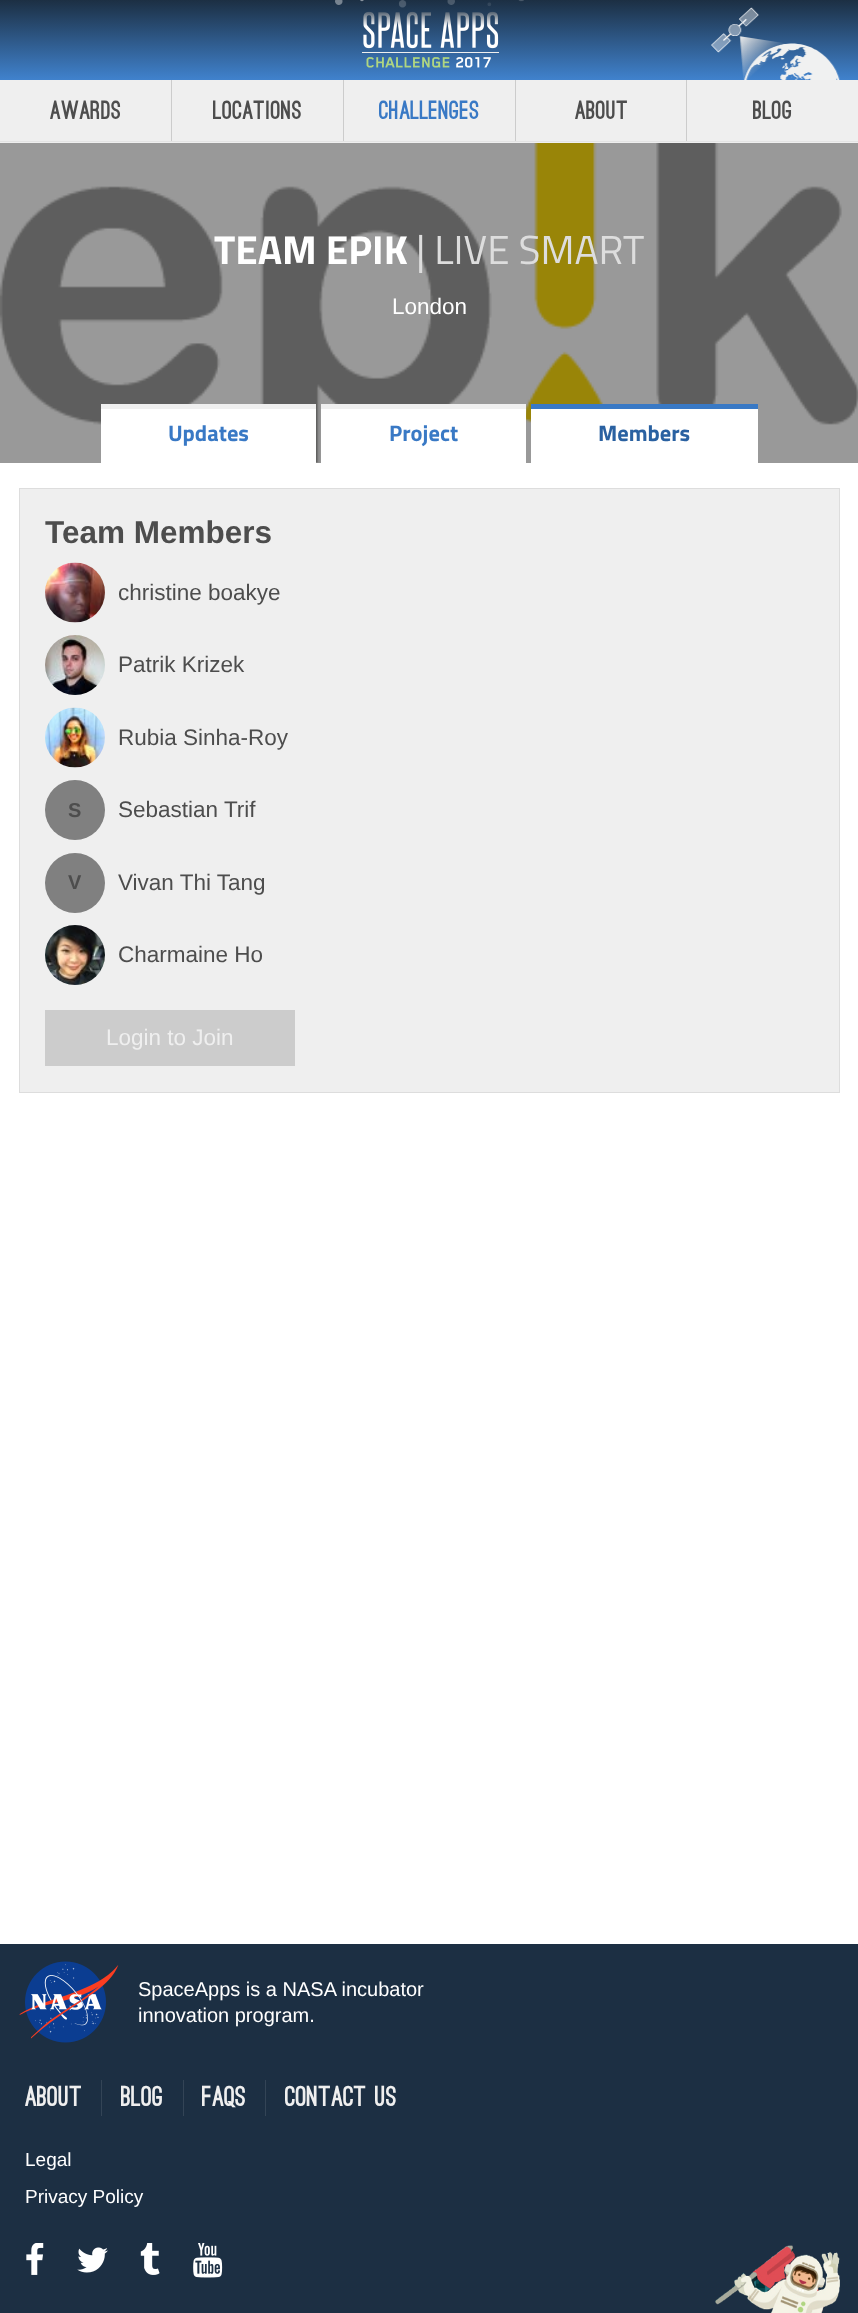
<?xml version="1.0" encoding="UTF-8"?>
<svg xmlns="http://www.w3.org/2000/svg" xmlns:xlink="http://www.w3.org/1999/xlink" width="858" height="2313">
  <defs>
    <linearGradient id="g1" gradientUnits="userSpaceOnUse" x1="429" y1="80" x2="429" y2="0"><stop offset="0" stop-color="#4082cd" /><stop offset="1" stop-color="#1c2f43" /></linearGradient>
  </defs>
  <rect width="100%" height="100%" fill="#ffffff" />
  <rect y="143" width="858" height="320" fill="#999999" />
  <rect y="80" width="858" height="63" fill="#efefef" />
  <rect y="141" width="858" height="1" fill="#e3e3e3" />
  <rect width="858" height="80" fill="url(#g1)" />
  <image x="335" y="0" width="189" height="8" xlink:href="image1.png" />
  <image x="362" y="11" width="137" height="57" xlink:href="image2.png" />
  <image x="711" y="7" width="129" height="73" xlink:href="image3.png" />
  <rect x="171" y="80" width="1" height="61" fill="#cccccc" />
  <rect x="343" y="80" width="1" height="61" fill="#cccccc" />
  <rect x="515" y="80" width="1" height="61" fill="#cccccc" />
  <rect x="686" y="80" width="1" height="61" fill="#cccccc" />
  <image x="0" y="143" width="858" height="320" xlink:href="image4.png" />
  <rect x="101" y="409" width="215" height="54" fill="#ffffff" />
  <rect x="101" y="404" width="215" height="5" fill="#efefef" />
  <rect x="321" y="409" width="205" height="54" fill="#ffffff" />
  <rect x="321" y="404" width="205" height="5" fill="#efefef" />
  <rect x="531" y="409" width="227" height="54" fill="#ffffff" />
  <rect x="531" y="404" width="227" height="5" fill="#3979c5" />
  <rect x="19.5" y="488.5" width="820" height="604" fill="#efefef" stroke="#dddddd" />
  <image x="45" y="562" width="60" height="61" xlink:href="image5.png" />
  <image x="45" y="635" width="60" height="60" xlink:href="image6.png" />
  <image x="45" y="707" width="60" height="61" xlink:href="image7.png" />
  <circle cx="75" cy="810" r="30" fill="#808080" />
  <circle cx="75" cy="883" r="30" fill="#808080" />
  <image x="45" y="925" width="60" height="60" xlink:href="image8.png" />
  <rect x="45" y="1010" width="250" height="56" fill="#cccccc" />
  <rect y="1944" width="858" height="369" fill="#1c2f43" />
  <image x="19" y="1961" width="100" height="82" xlink:href="image9.png" />
  <rect x="101" y="2080" width="1" height="36" fill="#334456" />
  <rect x="183" y="2080" width="1" height="36" fill="#334456" />
  <rect x="265" y="2080" width="1" height="36" fill="#334456" />
  <image x="26" y="2243" width="18" height="32" xlink:href="image10.png" />
  <image x="77" y="2247" width="31" height="26" xlink:href="image11.png" />
  <image x="140" y="2243" width="20" height="32" xlink:href="image12.png" />
  <image x="193" y="2243" width="30" height="35" xlink:href="image13.png" />
  <image x="715" y="2245" width="125" height="68" xlink:href="image14.png" />
  <text x="50" y="119" style="font-family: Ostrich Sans; font-size: 25px; font-weight: 900; letter-spacing: 0.25px; fill: #4d4d4d">Awards</text>
  <text x="213" y="119" style="font-family: Ostrich Sans; font-size: 25px; font-weight: 900; letter-spacing: 0.25px; fill: #4d4d4d">Locations</text>
  <text x="379" y="119" style="font-family: Ostrich Sans; font-size: 25px; font-weight: 900; letter-spacing: 0.25px; fill: #3979c5">Challenges</text>
  <text x="575" y="119" style="font-family: Ostrich Sans; font-size: 25px; font-weight: 900; letter-spacing: 0.25px; fill: #4d4d4d">About</text>
  <text x="753" y="119" style="font-family: Ostrich Sans; font-size: 25px; font-weight: 900; letter-spacing: 0.25px; fill: #4d4d4d">Blog</text>
  <text x="214" y="264" style="font-family: Titillium Web; font-size: 40.5px; font-weight: bold; fill: #ffffff">TEAM EPIK</text>
  <text x="416" y="264" style="font-family: Titillium Web; font-size: 40.5px; fill: #dddddd">| LIVE SMART</text>
  <text x="392" y="314" style="font-family: Liberation Sans; font-size: 22.5px; fill: #ffffff">London</text>
  <text x="168" y="441" style="font-family: Titillium Web; font-size: 22.5px; font-weight: bold; fill: #3979c5">Updates</text>
  <text x="389" y="441" style="font-family: Titillium Web; font-size: 22.5px; font-weight: bold; fill: #3979c5">Project</text>
  <text x="598" y="441" style="font-family: Titillium Web; font-size: 22.5px; font-weight: bold; fill: #2a61a1">Members</text>
  <text x="45" y="543" style="font-family: Liberation Sans; font-size: 31.5px; font-weight: bold; fill: #4d4d4d">Team Members</text>
  <text x="118" y="600" style="font-family: Liberation Sans; font-size: 22.5px; fill: #4d4d4d">christine boakye</text>
  <text x="118" y="672" style="font-family: Liberation Sans; font-size: 22.5px; fill: #4d4d4d">Patrik Krizek</text>
  <text x="118" y="745" style="font-family: Liberation Sans; font-size: 22.5px; fill: #4d4d4d">Rubia Sinha-Roy</text>
  <text x="68" y="817" style="font-family: Liberation Sans; font-size: 20px; font-weight: bold; fill: #4d4d4d">S</text>
  <text x="118" y="817" style="font-family: Liberation Sans; font-size: 22.5px; fill: #4d4d4d">Sebastian Trif</text>
  <text x="68" y="889" style="font-family: Liberation Sans; font-size: 20px; font-weight: bold; fill: #4d4d4d">V</text>
  <text x="118" y="890" style="font-family: Liberation Sans; font-size: 22.5px; fill: #4d4d4d">Vivan Thi Tang</text>
  <text x="118" y="962" style="font-family: Liberation Sans; font-size: 22.5px; fill: #4d4d4d">Charmaine Ho</text>
  <text x="106" y="1045" style="font-family: Liberation Sans; font-size: 22.5px; fill: #efefef">Login to Join</text>
  <text x="138" y="1996" style="font-family: Liberation Sans; font-size: 20px; fill: #ffffff">SpaceApps is a NASA incubator</text>
  <text x="138" y="2022" style="font-family: Liberation Sans; font-size: 20px; fill: #ffffff">innovation program.</text>
  <text x="25" y="2106" style="font-family: Ostrich Sans; font-size: 27.5px; font-weight: 900; fill: #efefef">About</text>
  <text x="121" y="2106" style="font-family: Ostrich Sans; font-size: 27.5px; font-weight: 900; fill: #efefef">Blog</text>
  <text x="202" y="2106" style="font-family: Ostrich Sans; font-size: 27.5px; font-weight: 900; fill: #efefef">FAQs</text>
  <text x="285" y="2106" style="font-family: Ostrich Sans; font-size: 27.5px; font-weight: 900; fill: #efefef">Contact Us</text>
  <text x="25" y="2166" style="font-family: Liberation Sans; font-size: 19px; fill: #ffffff">Legal</text>
  <text x="25" y="2203" style="font-family: Liberation Sans; font-size: 19px; fill: #ffffff">Privacy Policy</text>
</svg>
